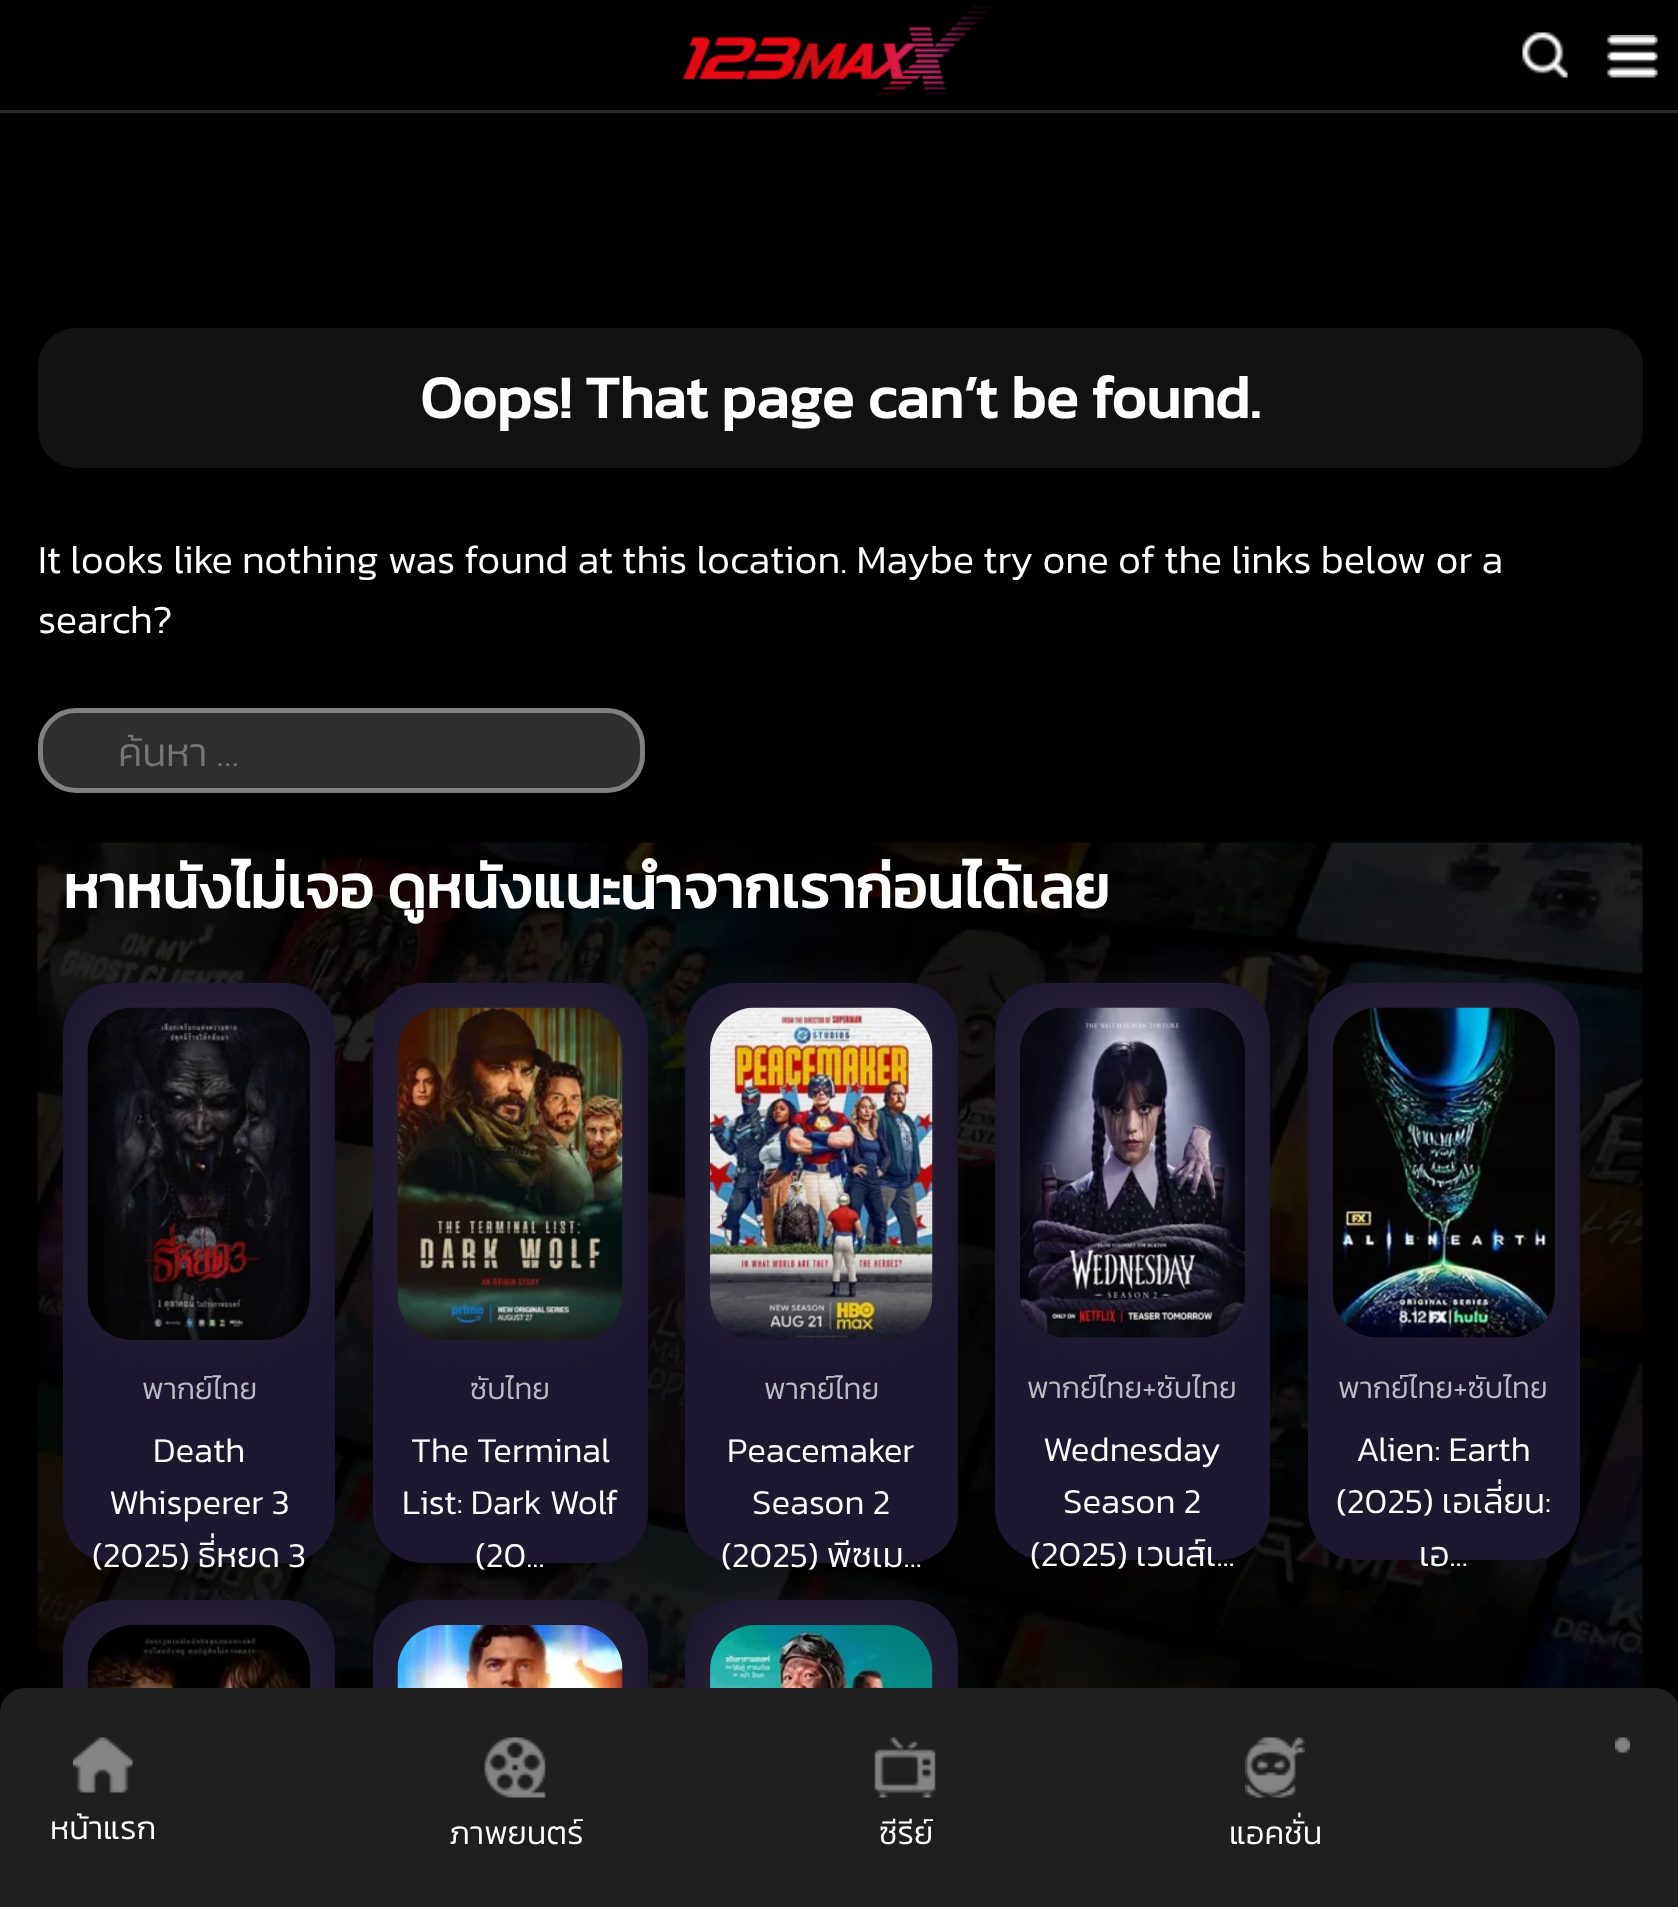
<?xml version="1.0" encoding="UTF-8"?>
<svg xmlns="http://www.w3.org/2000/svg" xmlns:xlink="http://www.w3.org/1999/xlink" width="1678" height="1907">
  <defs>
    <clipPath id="clip1"><rect x="118" y="720" width="460" height="60" /></clipPath>
  </defs>
  <rect width="100%" height="100%" fill="#000000" />
  <rect y="110" width="1678" height="3" fill="#2e2e2e" />
  <image x="682" y="5" width="312" height="90" xlink:href="image1.png" />
  <image x="1522" y="32" width="46" height="46" xlink:href="image2.png" />
  <image x="1607" y="35" width="51" height="43" xlink:href="image3.png" />
  <rect x="38" y="328" width="1605" height="140" rx="38" fill="#121212" />
  <rect x="40.5" y="710.5" width="602" height="80" rx="35.5" fill="#2e2e2e" stroke="#808080" stroke-width="5" />
  <image x="37" y="842" width="1606" height="846" xlink:href="image4.png" />
  <rect x="63" y="983" width="272" height="580" rx="50" fill="#1d182f" />
  <rect x="88" y="995" width="222" height="333" rx="45" fill="#362d3d" fill-opacity="0.58" filter="blur(25px)" />
  <image x="87" y="1007" width="223" height="333" xlink:href="image5.png" />
  <rect x="373" y="983" width="275" height="580" rx="50" fill="#1d182f" />
  <rect x="398" y="995" width="225" height="333" rx="45" fill="#362d3d" fill-opacity="0.58" filter="blur(25px)" />
  <image x="397" y="1007" width="226" height="333" xlink:href="image6.png" />
  <rect x="685" y="983" width="273" height="580" rx="50" fill="#1d182f" />
  <rect x="710" y="995" width="223" height="333" rx="45" fill="#362d3d" fill-opacity="0.58" filter="blur(25px)" />
  <image x="710" y="1007" width="223" height="333" xlink:href="image7.png" />
  <rect x="995" y="983" width="275" height="577" rx="50" fill="#1d182f" />
  <rect x="1020" y="995" width="225" height="330" rx="45" fill="#362d3d" fill-opacity="0.58" filter="blur(25px)" />
  <image x="1020" y="1007" width="225" height="331" xlink:href="image8.png" />
  <rect x="1308" y="983" width="272" height="577" rx="50" fill="#1d182f" />
  <rect x="1333" y="995" width="222" height="330" rx="45" fill="#362d3d" fill-opacity="0.58" filter="blur(25px)" />
  <image x="1332" y="1007" width="223" height="331" xlink:href="image9.png" />
  <rect x="63" y="1600" width="272" height="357" rx="50" fill="#1d182f" />
  <rect x="88" y="1613" width="222" height="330" rx="45" fill="#362d3d" fill-opacity="0.58" filter="blur(25px)" />
  <image x="87" y="1625" width="223" height="63" xlink:href="image10.png" />
  <rect x="373" y="1600" width="275" height="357" rx="50" fill="#1d182f" />
  <rect x="398" y="1613" width="225" height="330" rx="45" fill="#362d3d" fill-opacity="0.58" filter="blur(25px)" />
  <image x="397" y="1625" width="226" height="63" xlink:href="image11.png" />
  <rect x="685" y="1600" width="273" height="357" rx="50" fill="#1d182f" />
  <rect x="710" y="1613" width="223" height="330" rx="45" fill="#362d3d" fill-opacity="0.58" filter="blur(25px)" />
  <image x="710" y="1625" width="223" height="63" xlink:href="image12.png" />
  <path d="M 25 1688 h 1630 c 14 0 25 11 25 25 v 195 h -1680 v -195 c 0 -14 11 -25 25 -25 z" fill="#1f1f1f" />
  <image x="1615" y="1737" width="15" height="16" xlink:href="image13.png" />
  <image x="73" y="1737" width="60" height="56" xlink:href="image14.png" />
  <image x="484" y="1737" width="62" height="61" xlink:href="image15.png" />
  <image x="874" y="1737" width="62" height="61" xlink:href="image16.png" />
  <image x="1245" y="1737" width="60" height="61" xlink:href="image17.png" />
  <text x="420" y="418" style="font-family: Kanit; font-size: 60px; font-weight: bold; fill: #ffffff">Oops! That page can’t be found.</text>
  <text x="38" y="573" style="font-family: Kanit; font-size: 40px; font-weight: 300; fill: #ffffff">It looks like nothing was found at this location. Maybe try one of the links below or a</text>
  <text x="38" y="633" style="font-family: Kanit; font-size: 40px; font-weight: 300; fill: #ffffff">search?</text>
  <g clip-path="url(#clip1)">
    <text x="118" y="766" style="font-family: Kanit; font-size: 40px; font-weight: 300; fill: #757575">ค้นหา …</text>
  </g>
  <text x="63" y="908" style="font-family: Kanit; font-size: 60px; font-weight: bold; fill: #ffffff">หาหนังไม่เจอ ดูหนังแนะนำจากเราก่อนได้เลย</text>
  <text x="142" y="1399" style="font-family: Kanit; font-size: 30px; font-weight: 300; fill: #bbbbc3">พากย์ไทย</text>
  <text x="153" y="1462" style="font-family: Kanit; font-size: 35px; font-weight: 300; fill: #ffffff">Death</text>
  <text x="109" y="1514" style="font-family: Kanit; font-size: 35px; font-weight: 300; fill: #ffffff">Whisperer 3</text>
  <text x="92" y="1567" style="font-family: Kanit; font-size: 35px; font-weight: 300; fill: #ffffff">(2025) ธี่หยด 3</text>
  <text x="470" y="1399" style="font-family: Kanit; font-size: 30px; font-weight: 300; fill: #bbbbc3">ซับไทย</text>
  <text x="411" y="1462" style="font-family: Kanit; font-size: 35px; font-weight: 300; fill: #ffffff">The Terminal</text>
  <text x="402" y="1514" style="font-family: Kanit; font-size: 35px; font-weight: 300; fill: #ffffff">List: Dark Wolf</text>
  <text x="475" y="1567" style="font-family: Kanit; font-size: 35px; font-weight: 300; fill: #ffffff">(20...</text>
  <text x="764" y="1399" style="font-family: Kanit; font-size: 30px; font-weight: 300; fill: #bbbbc3">พากย์ไทย</text>
  <text x="727" y="1462" style="font-family: Kanit; font-size: 35px; font-weight: 300; fill: #ffffff">Peacemaker</text>
  <text x="752" y="1514" style="font-family: Kanit; font-size: 35px; font-weight: 300; fill: #ffffff">Season 2</text>
  <text x="721" y="1567" style="font-family: Kanit; font-size: 35px; font-weight: 300; fill: #ffffff">(2025) พีซเม...</text>
  <text x="1027" y="1398" style="font-family: Kanit; font-size: 30px; font-weight: 300; fill: #bbbbc3">พากย์ไทย+ซับไทย</text>
  <text x="1043" y="1461" style="font-family: Kanit; font-size: 35px; font-weight: 300; fill: #ffffff">Wednesday</text>
  <text x="1063" y="1513" style="font-family: Kanit; font-size: 35px; font-weight: 300; fill: #ffffff">Season 2</text>
  <text x="1030" y="1566" style="font-family: Kanit; font-size: 35px; font-weight: 300; fill: #ffffff">(2025) เวนส์เ...</text>
  <text x="1338" y="1398" style="font-family: Kanit; font-size: 30px; font-weight: 300; fill: #bbbbc3">พากย์ไทย+ซับไทย</text>
  <text x="1356" y="1461" style="font-family: Kanit; font-size: 35px; font-weight: 300; fill: #ffffff">Alien: Earth</text>
  <text x="1336" y="1513" style="font-family: Kanit; font-size: 35px; font-weight: 300; fill: #ffffff">(2025) เอเลี่ยน:</text>
  <text x="1419" y="1566" style="font-family: Kanit; font-size: 35px; font-weight: 300; fill: #ffffff">เอ...</text>
  <text x="50" y="1839" style="font-family: Kanit; font-size: 32.5px; font-weight: 300; fill: #ffffff">หน้าแรก</text>
  <text x="449" y="1844" style="font-family: Kanit; font-size: 32.5px; font-weight: 300; fill: #ffffff">ภาพยนตร์</text>
  <text x="879" y="1844" style="font-family: Kanit; font-size: 32.5px; font-weight: 300; fill: #ffffff">ซีรีย์</text>
  <text x="1229" y="1844" style="font-family: Kanit; font-size: 32.5px; font-weight: 300; fill: #ffffff">แอคชั่น</text>
</svg>
